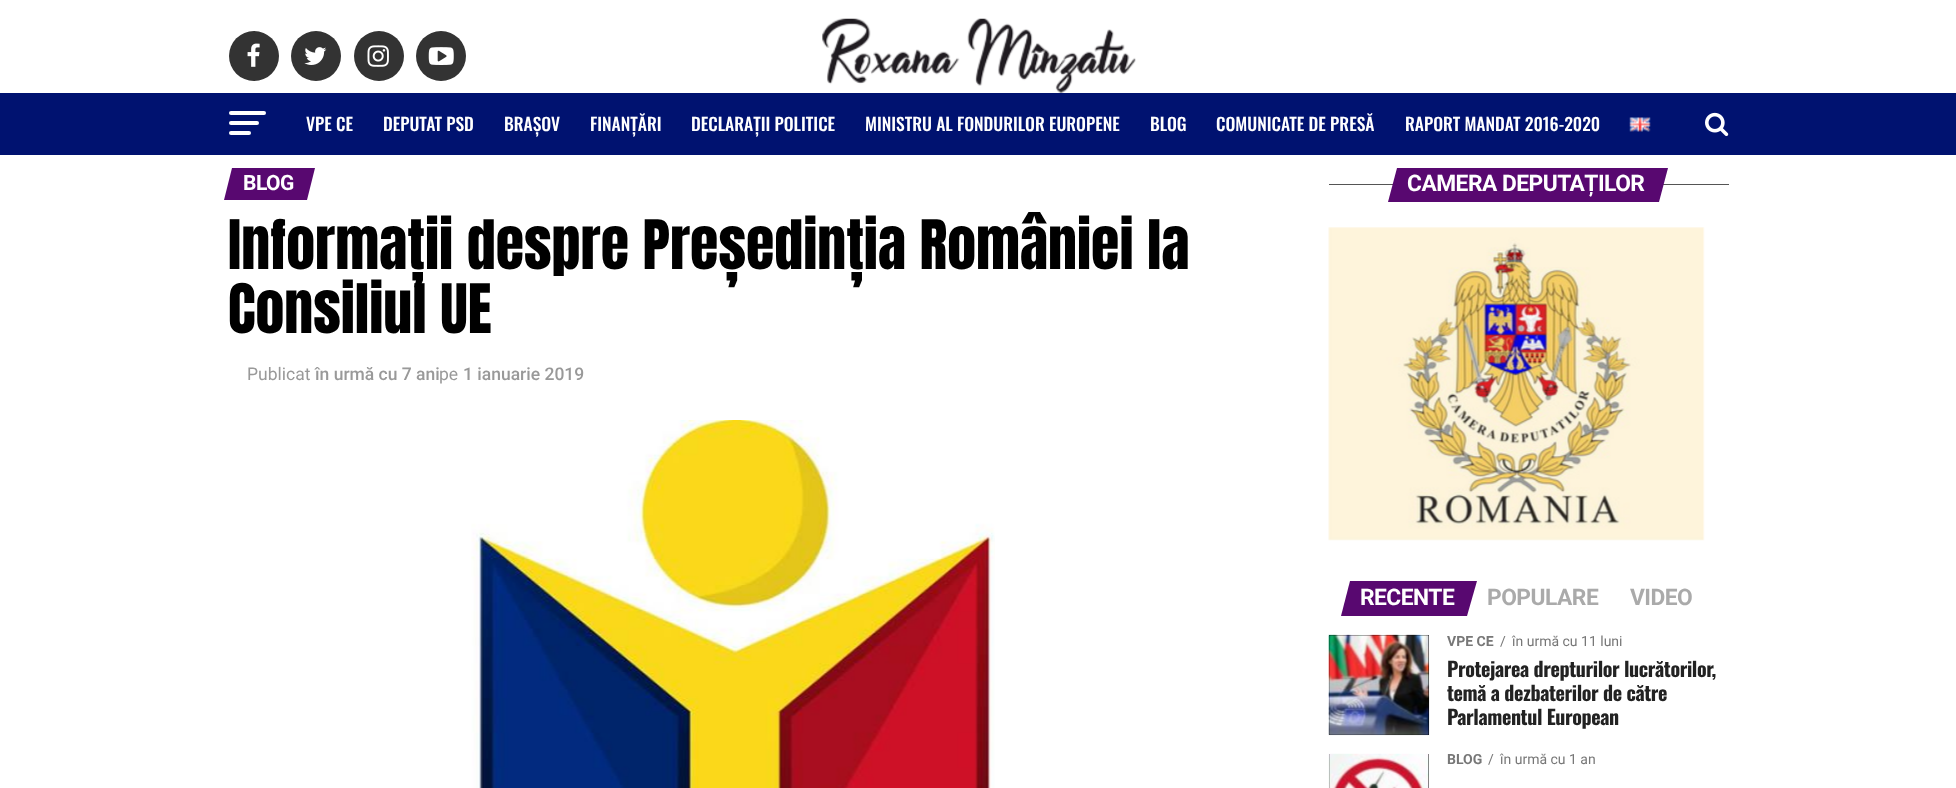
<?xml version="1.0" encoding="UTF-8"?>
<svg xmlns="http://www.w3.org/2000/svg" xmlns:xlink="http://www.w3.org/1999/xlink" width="1956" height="788">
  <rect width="100%" height="100%" fill="#ffffff" />
  <circle cx="254" cy="56" r="25" fill="#333333" />
  <image x="247" y="43" width="13" height="24" xlink:href="image1.png" />
  <circle cx="316" cy="56" r="25" fill="#333333" />
  <image x="304" y="47" width="23" height="18" xlink:href="image2.png" />
  <circle cx="379" cy="56" r="25" fill="#333333" />
  <image x="367" y="45" width="22" height="22" xlink:href="image3.png" />
  <circle cx="441" cy="56" r="25" fill="#333333" />
  <image x="428" y="47" width="26" height="18" xlink:href="image4.png" />
  <image x="822" y="18" width="314" height="75" xlink:href="image5.png" />
  <rect y="93" width="1956" height="62" fill="#001270" />
  <rect x="229" y="111" width="37" height="4" rx="2" fill="#ffffff" />
  <rect x="229" y="121" width="30" height="4" rx="2" fill="#ffffff" />
  <rect x="229" y="131" width="22" height="4" rx="2" fill="#ffffff" />
  <image x="1629" y="117" width="22" height="15" xlink:href="image6.png" />
  <image x="1705" y="112" width="24" height="25" xlink:href="image7.png" />
  <path d="M 232 168 h 83 l -8 32 h -83 z" fill="#580870" />
  <image x="471" y="420" width="524" height="368" xlink:href="image8.png" />
  <rect x="1329" y="184" width="400" height="1" fill="#555555" />
  <path d="M 1397 168 h 271 l -9 34 h -271 z" fill="#580870" />
  <image x="1328" y="227" width="377" height="314" xlink:href="image9.png" />
  <path d="M 1350 581 h 127 l -10 35 h -126 z" fill="#580870" />
  <rect x="1329" y="635" width="100" height="100" fill="#000000" />
  <image x="1328" y="634" width="102" height="102" xlink:href="image10.png" />
  <rect x="1329" y="754" width="100" height="34" fill="#000000" />
  <image x="1328" y="753" width="101" height="35" xlink:href="image11.png" />
  <text x="306" y="131" style="font-family: Oswald; font-size: 17.5px; font-weight: 500; fill: #ffffff">VPE CE</text>
  <text x="383" y="131" style="font-family: Oswald; font-size: 17.5px; font-weight: 500; fill: #ffffff">DEPUTAT PSD</text>
  <text x="504" y="131" style="font-family: Oswald; font-size: 17.5px; font-weight: 500; fill: #ffffff">BRAȘOV</text>
  <text x="590" y="131" style="font-family: Oswald; font-size: 17.5px; font-weight: 500; fill: #ffffff">FINANȚĂRI</text>
  <text x="691" y="131" style="font-family: Oswald; font-size: 17.5px; font-weight: 500; fill: #ffffff">DECLARAȚII POLITICE</text>
  <text x="865" y="131" style="font-family: Oswald; font-size: 17.5px; font-weight: 500; fill: #ffffff">MINISTRU AL FONDURILOR EUROPENE</text>
  <text x="1150" y="131" style="font-family: Oswald; font-size: 17.5px; font-weight: 500; fill: #ffffff">BLOG</text>
  <text x="1216" y="131" style="font-family: Oswald; font-size: 17.5px; font-weight: 500; fill: #ffffff">COMUNICATE DE PRESĂ</text>
  <text x="1405" y="131" style="font-family: Oswald; font-size: 17.5px; font-weight: 500; fill: #ffffff">RAPORT MANDAT 2016-2020</text>
  <text x="243" y="190" style="font-family: Roboto; font-size: 21px; font-weight: bold; letter-spacing: -0.5px; fill: #ffffff">BLOG</text>
  <text x="228" y="269" style="font-family: Anton; font-size: 58px; fill: #000000">Informații despre Președinția României la</text>
  <text x="228" y="333" style="font-family: Anton; font-size: 58px; fill: #000000">Consiliul UE</text>
  <text x="247" y="380" style="font-family: Roboto; font-size: 17.5px; fill: #999999">Publicat</text>
  <text x="315" y="380" style="font-family: Roboto; font-size: 17.5px; font-weight: 500; fill: #999999">în urmă cu 7 ani</text>
  <text x="439" y="380" style="font-family: Roboto; font-size: 17.5px; fill: #999999">pe</text>
  <text x="463" y="380" style="font-family: Roboto; font-size: 17.5px; font-weight: 500; fill: #999999">1 ianuarie 2019</text>
  <text x="1407" y="191" style="font-family: Roboto; font-size: 22.75px; font-weight: bold; letter-spacing: -0.5px; fill: #ffffff">CAMERA DEPUTAȚILOR</text>
  <text x="1360" y="605" style="font-family: Roboto; font-size: 22.75px; font-weight: bold; letter-spacing: -0.5px; fill: #ffffff">RECENTE</text>
  <text x="1487" y="605" style="font-family: Roboto; font-size: 22.75px; font-weight: bold; letter-spacing: -0.5px; fill: #aaaaaa">POPULARE</text>
  <text x="1630" y="605" style="font-family: Roboto; font-size: 22.75px; font-weight: bold; letter-spacing: -0.5px; fill: #aaaaaa">VIDEO</text>
  <text x="1447" y="646" style="font-family: Roboto; font-size: 14px; font-weight: bold; fill: #777777">VPE CE</text>
  <text x="1500" y="646" style="font-family: Roboto; font-size: 14px; fill: #777777">/</text>
  <text x="1512" y="646" style="font-family: Roboto; font-size: 14px; fill: #777777">în urmă cu 11 luni</text>
  <text x="1447" y="677" style="font-family: Oswald; font-size: 20px; font-weight: bold; letter-spacing: -0.4px; fill: #222222">Protejarea drepturilor lucrătorilor,</text>
  <text x="1447" y="701" style="font-family: Oswald; font-size: 20px; font-weight: bold; letter-spacing: -0.4px; fill: #222222">temă a dezbaterilor de către</text>
  <text x="1447" y="725" style="font-family: Oswald; font-size: 20px; font-weight: bold; letter-spacing: -0.4px; fill: #222222">Parlamentul European</text>
  <text x="1447" y="764" style="font-family: Roboto; font-size: 14px; font-weight: bold; fill: #777777">BLOG</text>
  <text x="1488" y="764" style="font-family: Roboto; font-size: 14px; fill: #777777">/</text>
  <text x="1500" y="764" style="font-family: Roboto; font-size: 14px; fill: #777777">în urmă cu 1 an</text>
</svg>
